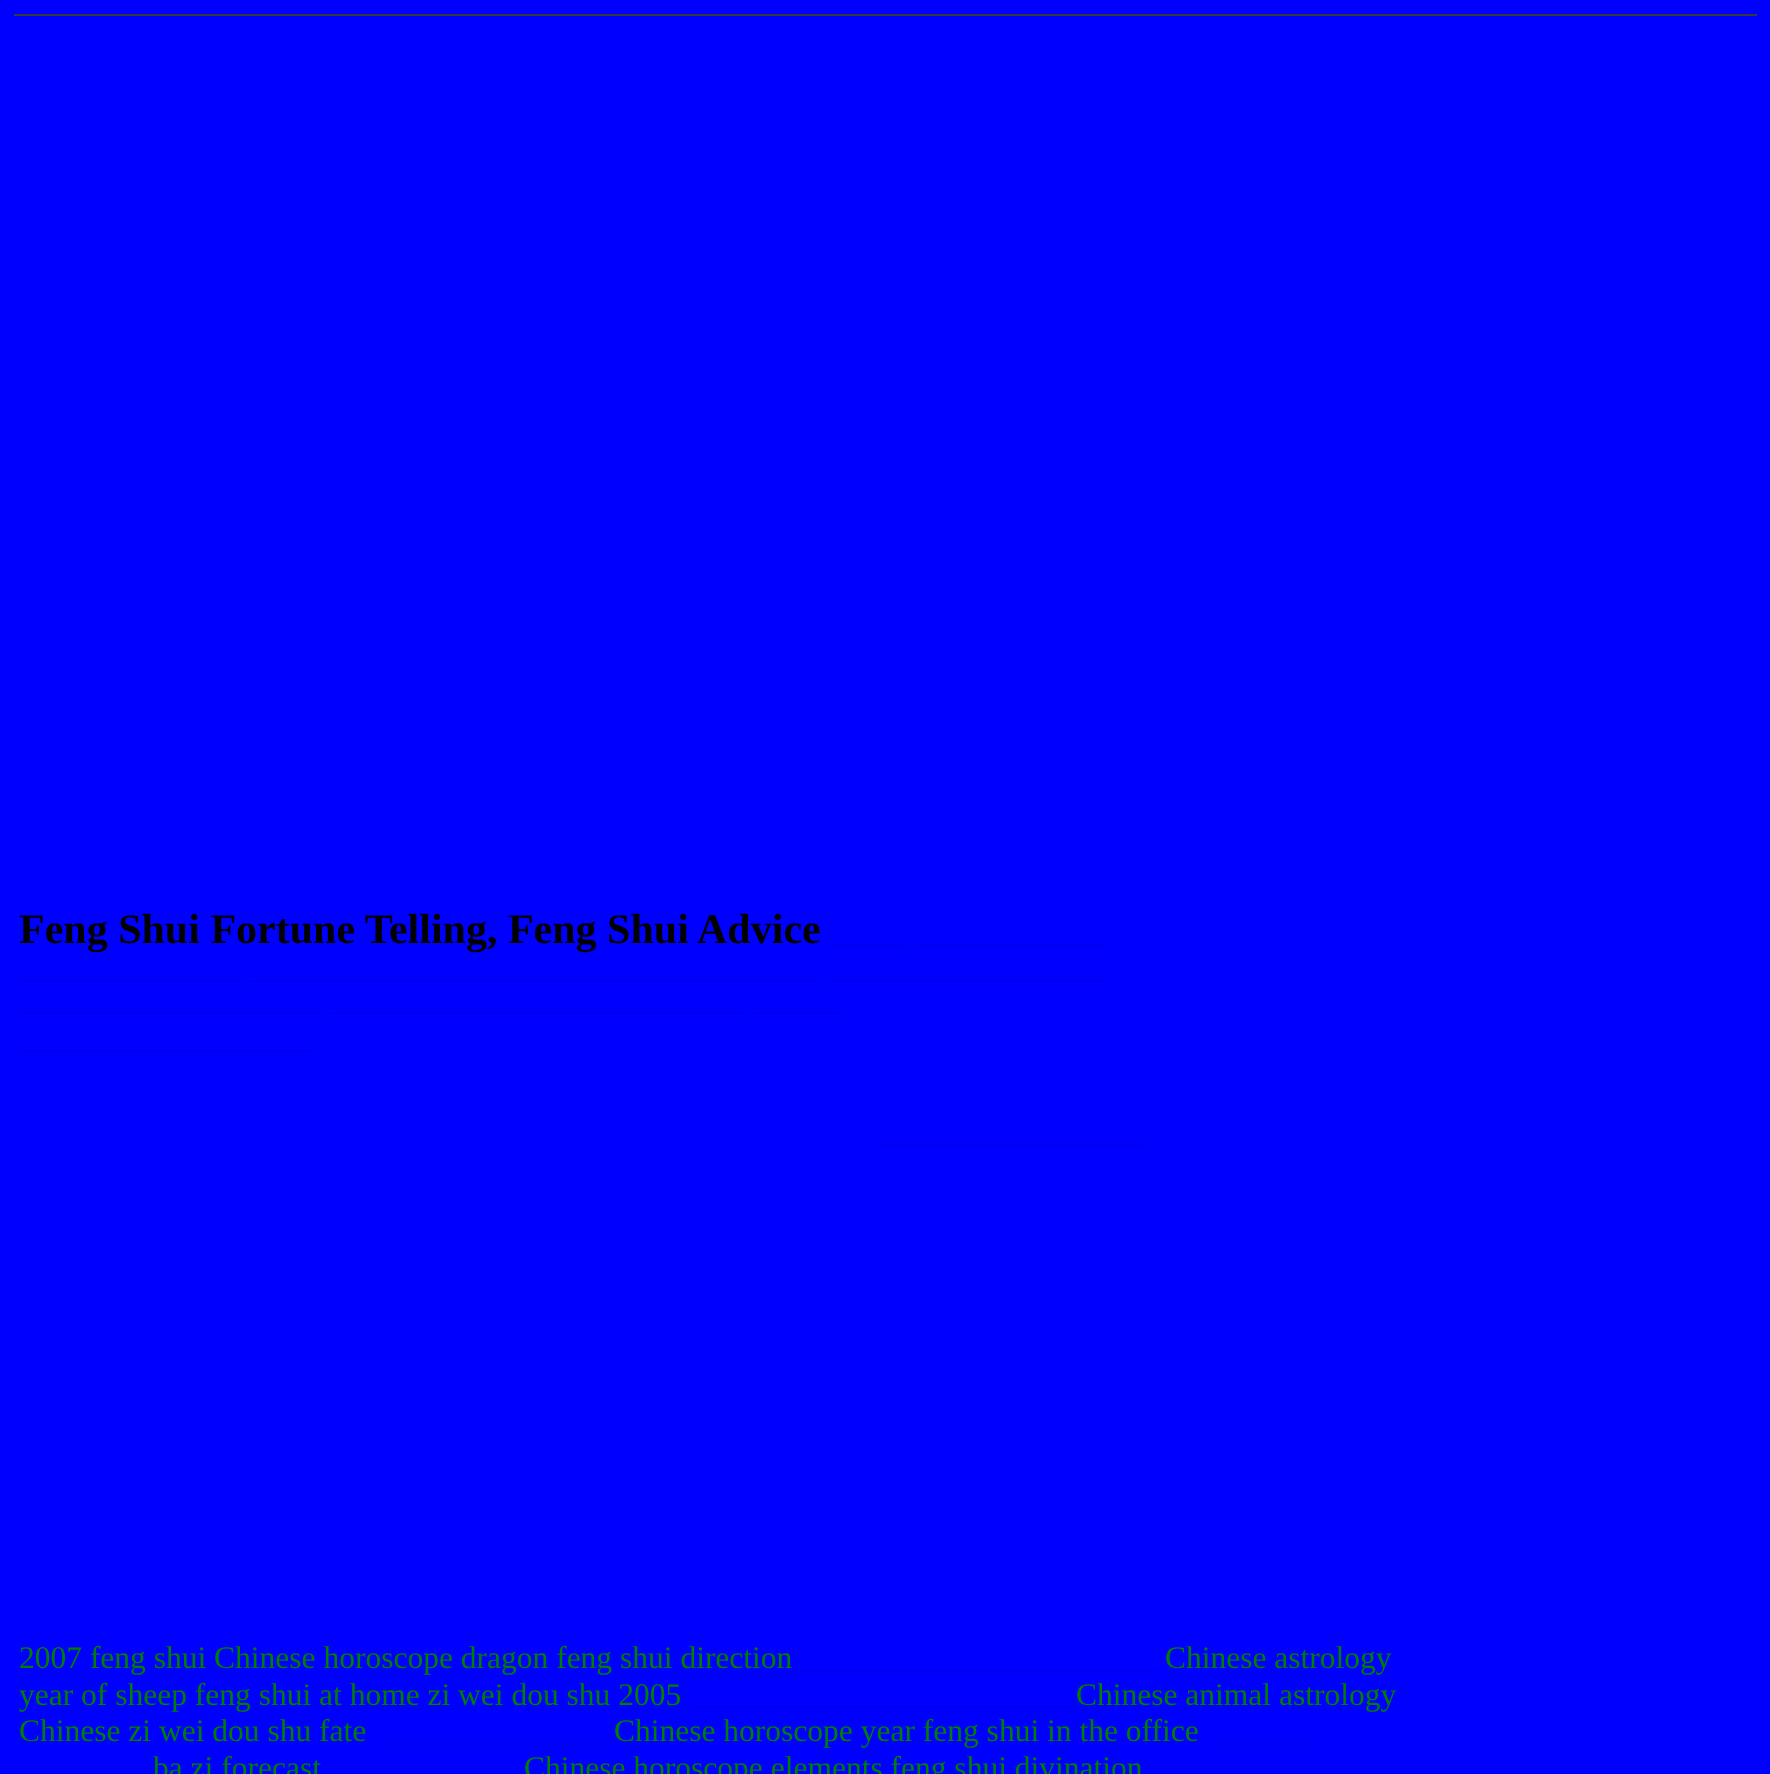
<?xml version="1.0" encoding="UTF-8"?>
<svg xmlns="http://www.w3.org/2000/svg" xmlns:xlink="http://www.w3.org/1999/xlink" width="1770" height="1774">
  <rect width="100%" height="100%" fill="#0000ff" />
  <rect x="14" y="14" width="1743" height="2" fill="#393939" />
  <rect x="828" y="945" width="80" height="2" fill="#0000ee" />
  <rect x="915" y="945" width="191" height="2" fill="#0000ee" />
  <rect x="19" y="980" width="223" height="2" fill="#0000ee" />
  <rect x="249" y="980" width="570" height="2" fill="#0000ee" />
  <rect x="826" y="980" width="284" height="2" fill="#0000ee" />
  <rect x="19" y="1012" width="303" height="2" fill="#0000ee" />
  <rect x="329" y="1012" width="417" height="2" fill="#0000ee" />
  <rect x="753" y="1012" width="87" height="2" fill="#0000ee" />
  <rect x="19" y="1050" width="294" height="2" fill="#0000ee" />
  <rect x="875" y="1145" width="270" height="2" fill="#0000ee" />
  <rect x="800" y="1670" width="357" height="2" fill="#0000ee" />
  <rect x="690" y="1706" width="386" height="2" fill="#0000ee" />
  <rect x="375" y="1743" width="239" height="2" fill="#0000ee" />
  <rect x="1206" y="1743" width="117" height="2" fill="#0000ee" />
  <text x="19" y="943" style="font-family: Liberation Serif; font-size: 42px; font-weight: bold; fill: #000000">Feng Shui Fortune Telling, Feng Shui Advice</text>
  <text x="19" y="1668" style="font-family: Liberation Serif; font-size: 31.5px; fill: #008000">2007 feng shui Chinese horoscope dragon feng shui direction</text>
  <text x="1165" y="1668" style="font-family: Liberation Serif; font-size: 31.5px; fill: #008000">Chinese astrology</text>
  <text x="19" y="1705" style="font-family: Liberation Serif; font-size: 31.5px; fill: #008000">year of sheep feng shui at home zi wei dou shu 2005</text>
  <text x="1076" y="1705" style="font-family: Liberation Serif; font-size: 31.5px; fill: #008000">Chinese animal astrology</text>
  <text x="19" y="1741" style="font-family: Liberation Serif; font-size: 31.5px; fill: #008000">Chinese zi wei dou shu fate</text>
  <text x="614" y="1741" style="font-family: Liberation Serif; font-size: 31.5px; fill: #008000">Chinese horoscope year feng shui in the office</text>
  <text x="153" y="1778" style="font-family: Liberation Serif; font-size: 31.5px; fill: #008000">ba zi forecast</text>
  <text x="524" y="1778" style="font-family: Liberation Serif; font-size: 31.5px; fill: #008000">Chinese horoscope elements feng shui divination</text>
</svg>
